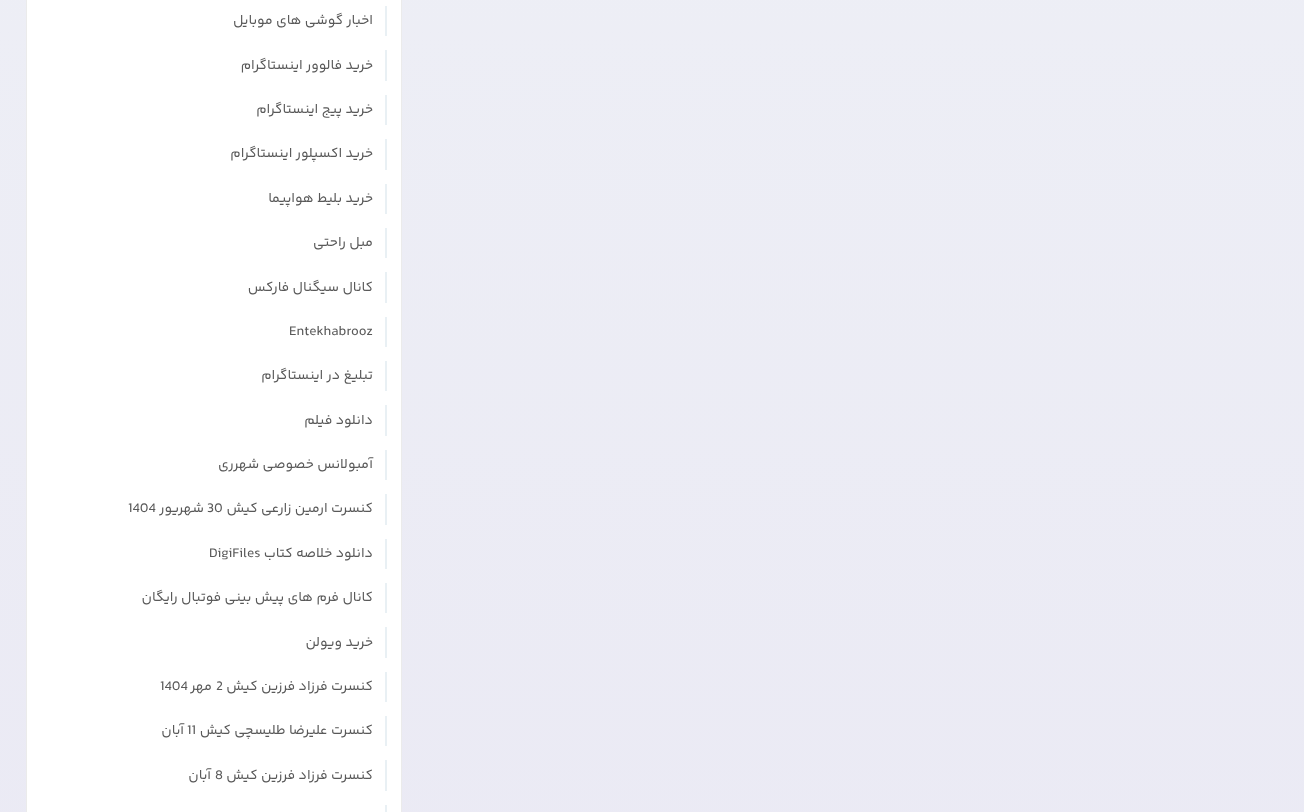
<?xml version="1.0" encoding="UTF-8"?>
<svg xmlns="http://www.w3.org/2000/svg" xmlns:xlink="http://www.w3.org/1999/xlink" width="1304" height="812">
  <defs>
    <linearGradient id="g1" gradientUnits="userSpaceOnUse" x1="652" y1="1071" x2="652" y2="-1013"><stop offset="0" stop-color="#eae9f4" /><stop offset="1" stop-color="#f0f3f7" /></linearGradient>
  </defs>
  <rect width="100%" height="100%" fill="#ffffff" />
  <rect width="1304" height="812" fill="url(#g1)" />
  <rect x="26.5" y="-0.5" width="375" height="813" fill="#ffffff" stroke="#ebebeb" />
  <rect x="385" y="6" width="2" height="30" fill="#e9f0f4" />
  <rect x="385" y="50" width="2" height="31" fill="#e9f0f4" />
  <rect x="385" y="95" width="2" height="30" fill="#e9f0f4" />
  <rect x="385" y="139" width="2" height="31" fill="#e9f0f4" />
  <rect x="385" y="184" width="2" height="30" fill="#e9f0f4" />
  <rect x="385" y="228" width="2" height="30" fill="#e9f0f4" />
  <rect x="385" y="272" width="2" height="31" fill="#e9f0f4" />
  <rect x="385" y="317" width="2" height="30" fill="#e9f0f4" />
  <rect x="385" y="361" width="2" height="30" fill="#e9f0f4" />
  <rect x="385" y="405" width="2" height="31" fill="#e9f0f4" />
  <rect x="385" y="450" width="2" height="30" fill="#e9f0f4" />
  <rect x="385" y="494" width="2" height="31" fill="#e9f0f4" />
  <rect x="385" y="539" width="2" height="30" fill="#e9f0f4" />
  <rect x="385" y="583" width="2" height="30" fill="#e9f0f4" />
  <rect x="385" y="627" width="2" height="31" fill="#e9f0f4" />
  <rect x="385" y="672" width="2" height="30" fill="#e9f0f4" />
  <rect x="385" y="716" width="2" height="30" fill="#e9f0f4" />
  <rect x="385" y="760" width="2" height="31" fill="#e9f0f4" />
  <rect x="385" y="805" width="2" height="7" fill="#e9f0f4" />
  <text x="373" y="24" style="font-family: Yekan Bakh; font-size: 14px; direction: rtl; fill: #595959">اخبار گوشی های موبایل</text>
  <text x="373" y="69" style="font-family: Yekan Bakh; font-size: 14px; direction: rtl; fill: #595959">خرید فالوور اینستاگرام</text>
  <text x="373" y="113" style="font-family: Yekan Bakh; font-size: 14px; direction: rtl; fill: #595959">خرید پیج اینستاگرام</text>
  <text x="373" y="157" style="font-family: Yekan Bakh; font-size: 14px; direction: rtl; fill: #595959">خرید اکسپلور اینستاگرام</text>
  <text x="373" y="202" style="font-family: Yekan Bakh; font-size: 14px; direction: rtl; fill: #595959">خرید بلیط هواپیما</text>
  <text x="373" y="246" style="font-family: Yekan Bakh; font-size: 14px; direction: rtl; fill: #595959">مبل راحتی</text>
  <text x="373" y="291" style="font-family: Yekan Bakh; font-size: 14px; direction: rtl; fill: #595959">کانال سیگنال فارکس</text>
  <text x="289" y="335" style="font-family: Yekan Bakh; font-size: 14px; fill: #595959">Entekhabrooz</text>
  <text x="373" y="379" style="font-family: Yekan Bakh; font-size: 14px; direction: rtl; fill: #595959">تبلیغ در اینستاگرام</text>
  <text x="373" y="424" style="font-family: Yekan Bakh; font-size: 14px; direction: rtl; fill: #595959">دانلود فیلم</text>
  <text x="373" y="468" style="font-family: Yekan Bakh; font-size: 14px; direction: rtl; fill: #595959">آمبولانس خصوصی شهرری</text>
  <text x="373" y="512" style="font-family: Yekan Bakh; font-size: 14px; direction: rtl; fill: #595959">کنسرت ارمین زارعی کیش</text>
  <text x="207" y="512" style="font-family: Yekan Bakh; font-size: 14px; fill: #595959">30</text>
  <text x="204" y="512" style="font-family: Yekan Bakh; font-size: 14px; direction: rtl; fill: #595959">شهریور</text>
  <text x="128" y="512" style="font-family: Yekan Bakh; font-size: 14px; fill: #595959">1404</text>
  <text x="373" y="557" style="font-family: Yekan Bakh; font-size: 14px; direction: rtl; fill: #595959">دانلود خلاصه کتاب</text>
  <text x="209" y="557" style="font-family: Yekan Bakh; font-size: 14px; fill: #595959">DigiFiles</text>
  <text x="373" y="601" style="font-family: Yekan Bakh; font-size: 14px; direction: rtl; fill: #595959">کانال فرم های پیش بینی فوتبال رایگان</text>
  <text x="373" y="646" style="font-family: Yekan Bakh; font-size: 14px; direction: rtl; fill: #595959">خرید ویولن</text>
  <text x="373" y="690" style="font-family: Yekan Bakh; font-size: 14px; direction: rtl; fill: #595959">کنسرت فرزاد فرزین کیش</text>
  <text x="216" y="690" style="font-family: Yekan Bakh; font-size: 14px; fill: #595959">2</text>
  <text x="212" y="690" style="font-family: Yekan Bakh; font-size: 14px; direction: rtl; fill: #595959">مهر</text>
  <text x="160" y="690" style="font-family: Yekan Bakh; font-size: 14px; fill: #595959">1404</text>
  <text x="373" y="734" style="font-family: Yekan Bakh; font-size: 14px; direction: rtl; fill: #595959">کنسرت علیرضا طلیسچی کیش</text>
  <text x="187" y="734" style="font-family: Yekan Bakh; font-size: 14px; fill: #595959">11</text>
  <text x="184" y="734" style="font-family: Yekan Bakh; font-size: 14px; direction: rtl; fill: #595959">آبان</text>
  <text x="373" y="779" style="font-family: Yekan Bakh; font-size: 14px; direction: rtl; fill: #595959">کنسرت فرزاد فرزین کیش</text>
  <text x="215" y="779" style="font-family: Yekan Bakh; font-size: 14px; fill: #595959">8</text>
  <text x="211" y="779" style="font-family: Yekan Bakh; font-size: 14px; direction: rtl; fill: #595959">آبان</text>
</svg>
